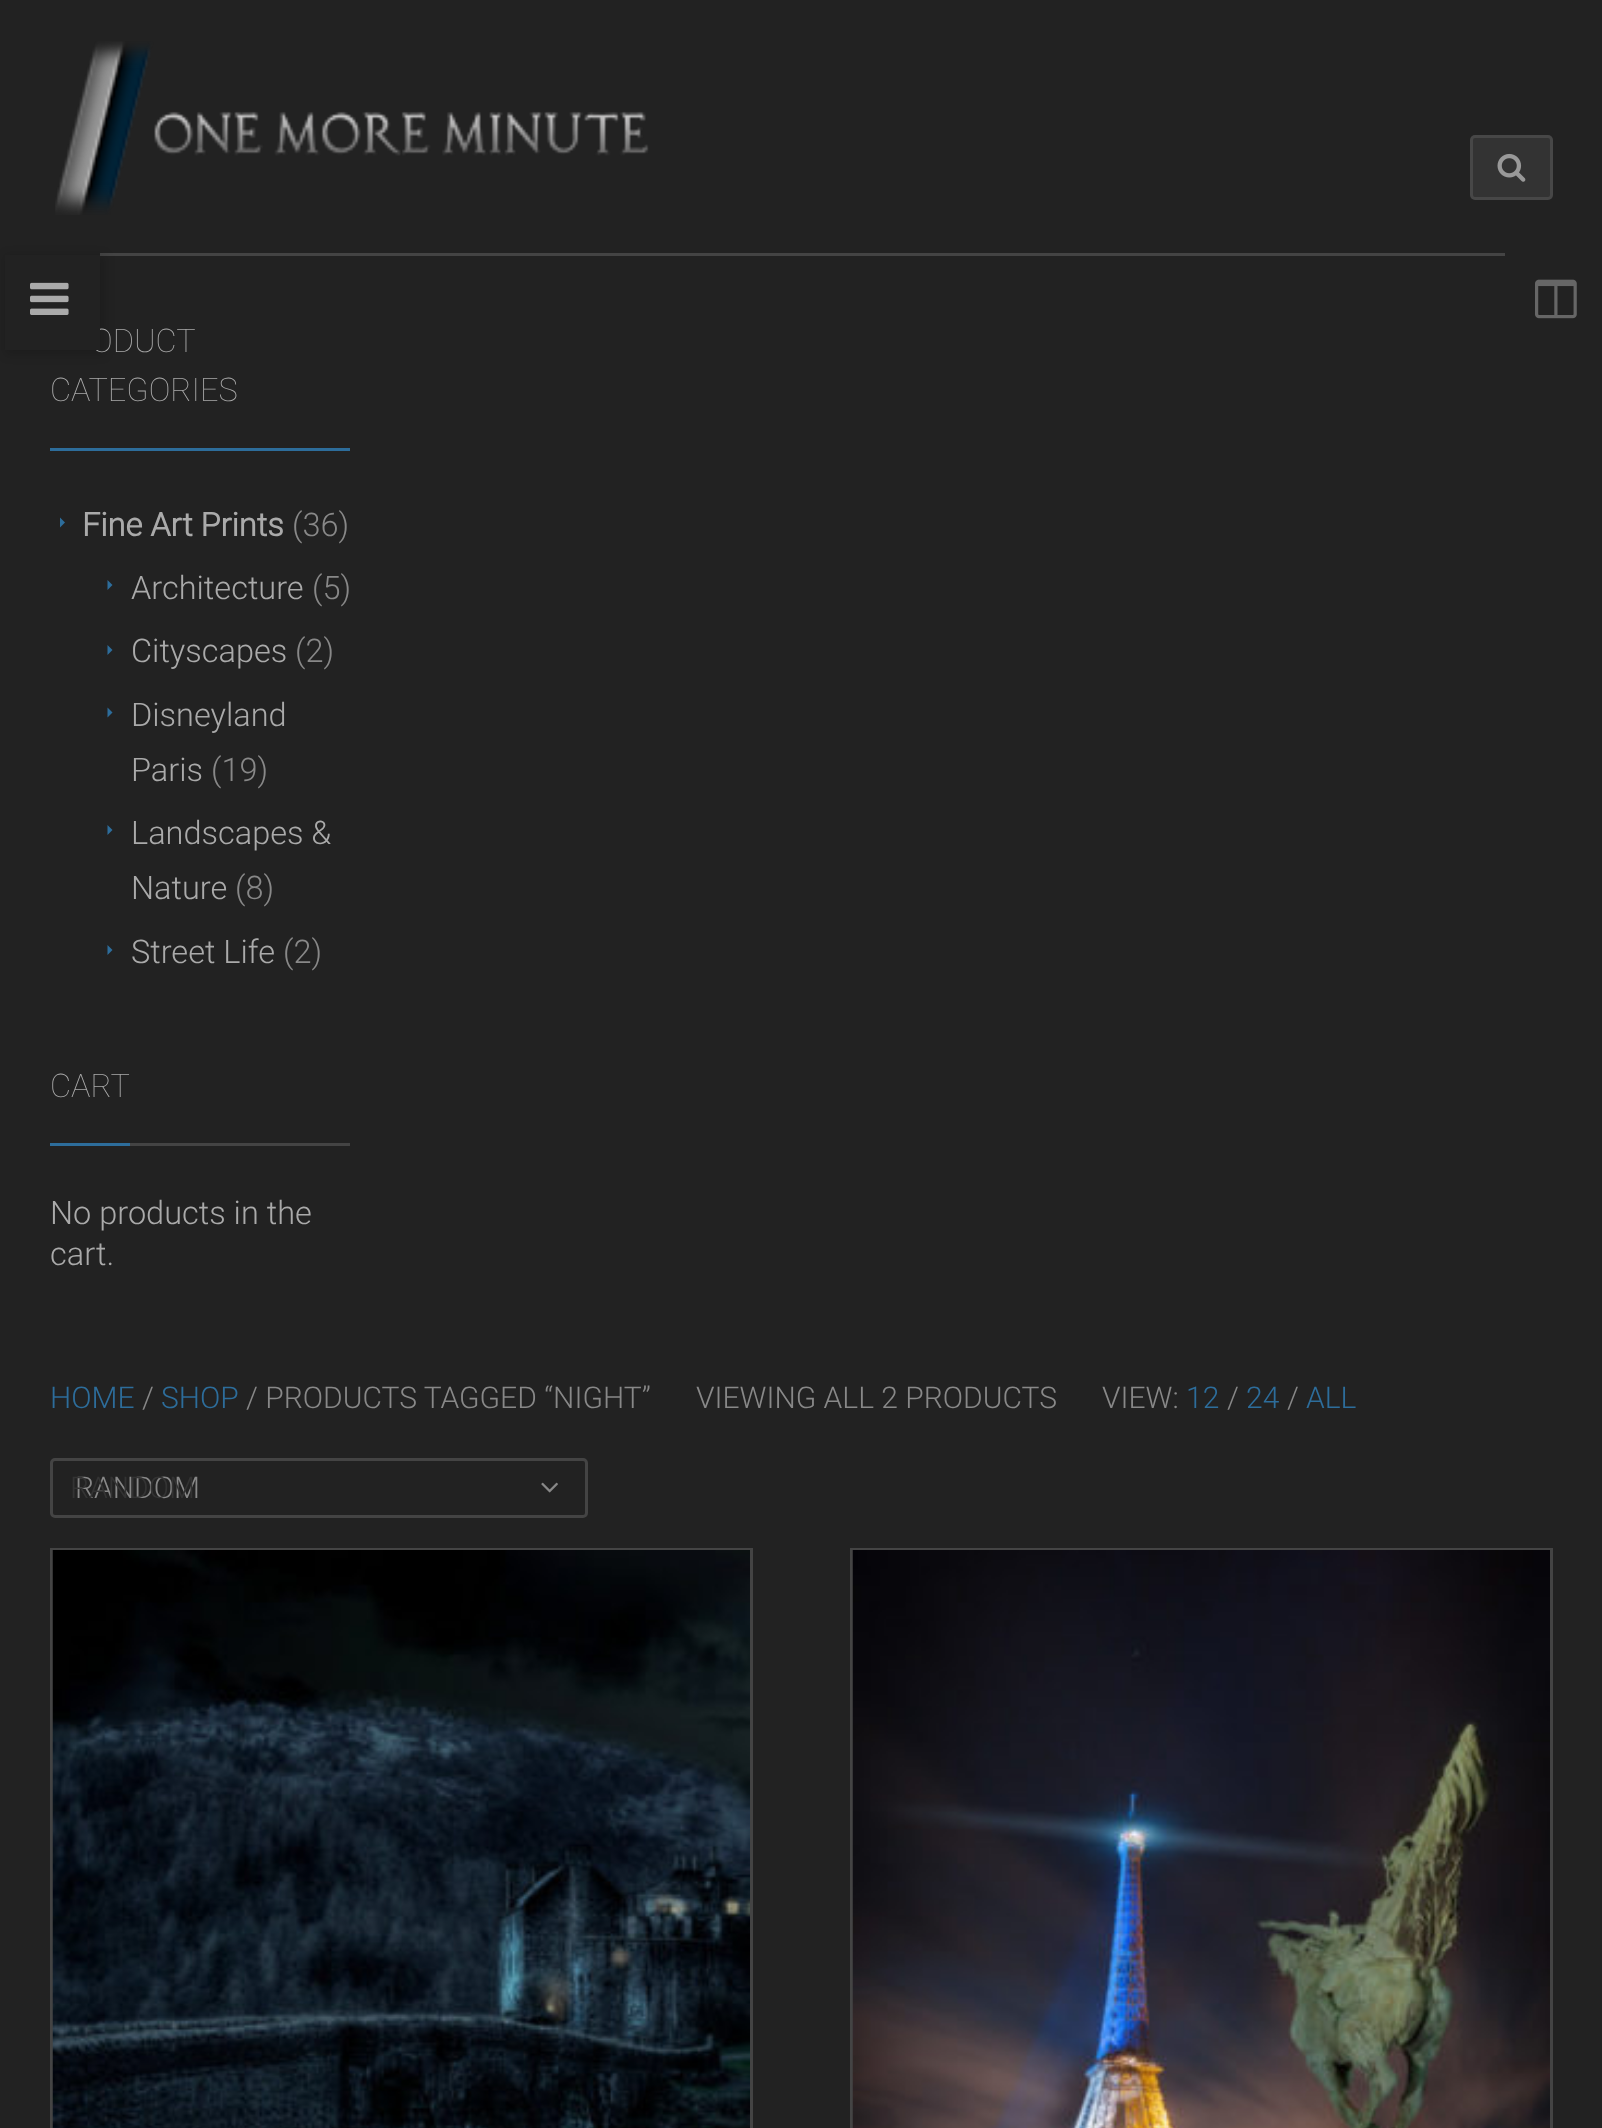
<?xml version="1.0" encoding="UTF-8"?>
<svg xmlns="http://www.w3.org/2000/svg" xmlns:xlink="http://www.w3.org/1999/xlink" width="1602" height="2128">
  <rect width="100%" height="100%" fill="#222222" />
  <rect x="100" y="253" width="1405" height="3" fill="#444444" />
  <image x="55" y="41" width="594" height="174" xlink:href="image1.png" />
  <rect x="1470" y="135" width="83" height="65" rx="5" fill="#333333" />
  <rect x="1471.5" y="136.5" width="80" height="62" rx="3.5" fill="none" stroke="#ffffff" stroke-opacity="0.1" stroke-width="3" />
  <image x="1497" y="153" width="29" height="29" xlink:href="image2.png" />
  <rect x="5" y="255" width="100" height="100" fill="#000000" fill-opacity="0.15" filter="blur(5px)" />
  <image x="1535" y="279" width="42" height="40" xlink:href="image4.png" />
  <rect x="50" y="448" width="300" height="3" fill="#2d6d9b" />
  <path d="M 60 527.5 v -10 l 5 5 z" fill="#2d6d9b" />
  <path d="M 107.5 590 v -10 l 5 5 z" fill="#2d6d9b" />
  <path d="M 107.5 655 v -10 l 5 5 z" fill="#2d6d9b" />
  <path d="M 107.5 717.5 v -10 l 5 5 z" fill="#2d6d9b" />
  <path d="M 107.5 835 v -10 l 5 5 z" fill="#2d6d9b" />
  <path d="M 107.5 955 v -10 l 5 5 z" fill="#2d6d9b" />
  <rect x="130" y="1143" width="220" height="3" fill="#444444" />
  <rect x="50" y="1143" width="80" height="3" fill="#2d6d9b" />
  <rect x="51.5" y="1459.5" width="535" height="57" rx="3.5" fill="none" stroke="#444444" stroke-width="3" />
  <image x="541" y="1482" width="17" height="11" xlink:href="image5.png" />
  <rect x="51.5" y="1549.5" width="700" height="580" fill="none" stroke="#444444" stroke-width="3" />
  <image x="52" y="1550" width="698" height="578" xlink:href="image6.png" />
  <rect x="851.5" y="1549.5" width="700" height="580" fill="none" stroke="#444444" stroke-width="3" />
  <image x="852" y="1550" width="698" height="578" xlink:href="image7.png" />
  <text x="91" y="352" style="font-family: Roboto; font-size: 32.5px; font-weight: 100; fill: #aaaaaa">ODUCT</text>
  <rect x="5" y="255" width="95" height="95" fill="#222222" />
  <image x="30" y="282" width="39" height="33" xlink:href="image3.png" />
  <text x="50" y="401" style="font-family: Roboto; font-size: 32.5px; font-weight: 100; fill: #aaaaaa">CATEGORIES</text>
  <text x="82" y="536" style="font-family: Roboto; font-size: 32.5px; font-weight: bold; fill: #aaaaaa">Fine Art Prints</text>
  <text x="292" y="536" style="font-family: Roboto; font-size: 32.5px; font-weight: 300; fill: #888888">(36)</text>
  <text x="131" y="599" style="font-family: Roboto; font-size: 32.5px; font-weight: 300; fill: #aaaaaa">Architecture</text>
  <text x="312" y="599" style="font-family: Roboto; font-size: 32.5px; font-weight: 300; fill: #888888">(5)</text>
  <text x="131" y="662" style="font-family: Roboto; font-size: 32.5px; font-weight: 300; fill: #aaaaaa">Cityscapes</text>
  <text x="295" y="662" style="font-family: Roboto; font-size: 32.5px; font-weight: 300; fill: #888888">(2)</text>
  <text x="131" y="726" style="font-family: Roboto; font-size: 32.5px; font-weight: 300; fill: #aaaaaa">Disneyland</text>
  <text x="131" y="781" style="font-family: Roboto; font-size: 32.5px; font-weight: 300; fill: #aaaaaa">Paris</text>
  <text x="211" y="781" style="font-family: Roboto; font-size: 32.5px; font-weight: 300; fill: #888888">(19)</text>
  <text x="131" y="844" style="font-family: Roboto; font-size: 32.5px; font-weight: 300; fill: #aaaaaa">Landscapes &amp;</text>
  <text x="131" y="899" style="font-family: Roboto; font-size: 32.5px; font-weight: 300; fill: #aaaaaa">Nature</text>
  <text x="235" y="899" style="font-family: Roboto; font-size: 32.5px; font-weight: 300; fill: #888888">(8)</text>
  <text x="131" y="963" style="font-family: Roboto; font-size: 32.5px; font-weight: 300; fill: #aaaaaa">Street Life</text>
  <text x="283" y="963" style="font-family: Roboto; font-size: 32.5px; font-weight: 300; fill: #888888">(2)</text>
  <text x="50" y="1097" style="font-family: Roboto; font-size: 32.5px; font-weight: 100; fill: #aaaaaa">CART</text>
  <text x="50" y="1224" style="font-family: Roboto; font-size: 32.5px; font-weight: 300; fill: #aaaaaa">No products in the</text>
  <text x="50" y="1265" style="font-family: Roboto; font-size: 32.5px; font-weight: 300; fill: #aaaaaa">cart.</text>
  <text x="50" y="1408" style="font-family: Roboto; font-size: 30px; font-weight: 300; fill: #2d6d9b">HOME</text>
  <text x="142" y="1408" style="font-family: Roboto; font-size: 30px; font-weight: 300; fill: #888888">/</text>
  <text x="161" y="1408" style="font-family: Roboto; font-size: 30px; font-weight: 300; fill: #2d6d9b">SHOP</text>
  <text x="246" y="1408" style="font-family: Roboto; font-size: 30px; font-weight: 300; fill: #888888">/ PRODUCTS TAGGED “NIGHT”</text>
  <text x="696" y="1408" style="font-family: Roboto; font-size: 30px; font-weight: 300; fill: #888888">VIEWING ALL 2 PRODUCTS</text>
  <text x="1102" y="1408" style="font-family: Roboto; font-size: 30px; font-weight: 300; fill: #888888">VIEW:</text>
  <text x="1186" y="1408" style="font-family: Roboto; font-size: 30px; font-weight: 300; fill: #2d6d9b">12</text>
  <text x="1227" y="1408" style="font-family: Roboto; font-size: 30px; font-weight: 300; fill: #888888">/</text>
  <text x="1246" y="1408" style="font-family: Roboto; font-size: 30px; font-weight: 300; fill: #2d6d9b">24</text>
  <text x="1287" y="1408" style="font-family: Roboto; font-size: 30px; font-weight: 300; fill: #888888">/</text>
  <text x="1306" y="1408" style="font-family: Roboto; font-size: 30px; font-weight: 300; fill: #2d6d9b">ALL</text>
  <text x="75" y="1498" style="font-family: Roboto; font-size: 30px; font-weight: 300; fill: #888888">RANDOM</text>
  <text x="70" y="1498" style="font-family: Roboto; font-size: 30px; font-weight: 300; fill: #333333">RANDOM</text>
</svg>
